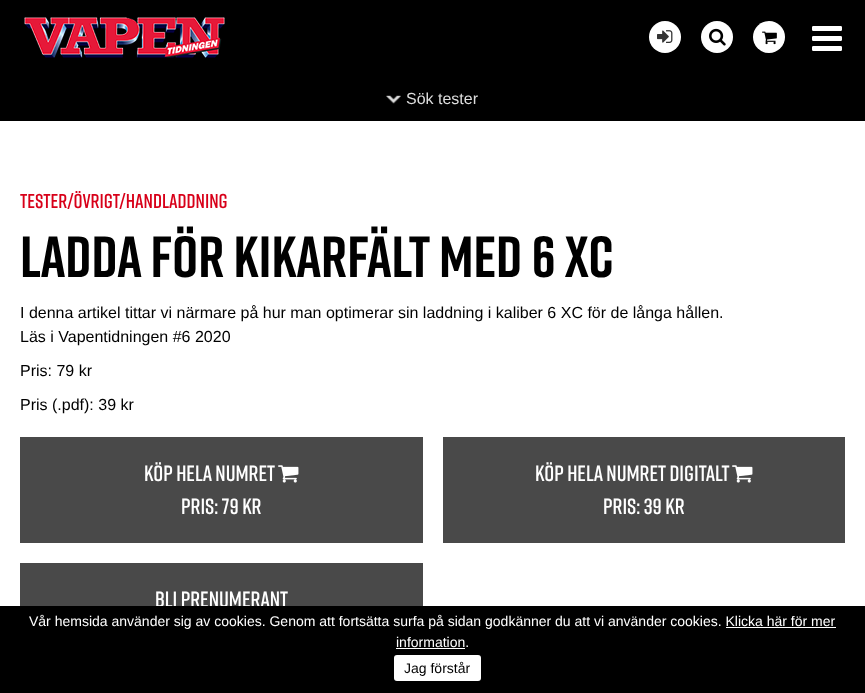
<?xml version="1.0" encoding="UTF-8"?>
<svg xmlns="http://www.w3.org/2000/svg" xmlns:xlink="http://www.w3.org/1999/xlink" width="865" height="693">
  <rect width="100%" height="100%" fill="#ffffff" />
  <rect width="865" height="121" fill="#000000" />
  <image x="24" y="17" width="201" height="41" xlink:href="image1.png" />
  <circle cx="665" cy="37" r="16" fill="#ffffff" />
  <image x="657" y="30" width="16" height="13" xlink:href="image2.png" />
  <circle cx="717" cy="37" r="16" fill="#ffffff" />
  <image x="709" y="28" width="17" height="18" xlink:href="image3.png" />
  <circle cx="769" cy="37" r="16" fill="#ffffff" />
  <image x="762" y="31" width="15" height="14" xlink:href="image4.png" />
  <image x="812" y="26" width="30" height="25" xlink:href="image5.png" />
  <image x="386" y="95" width="15" height="9" xlink:href="image6.png" />
  <rect x="20" y="437" width="403" height="106" fill="#494949" />
  <image x="278" y="465" width="21" height="18" xlink:href="image7.png" />
  <rect x="443" y="437" width="402" height="106" fill="#494949" />
  <image x="732" y="465" width="21" height="18" xlink:href="image7.png" />
  <rect x="20" y="563" width="403" height="43" fill="#494949" />
  <text x="406" y="104" style="font-family: Liberation Sans; font-size: 16px; fill: #dddddd">Sök tester</text>
  <text x="20" y="208" style="font-family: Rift; font-size: 20px; font-weight: 600; fill: #d80019">Tester/Övrigt/Handladdning</text>
  <text x="20" y="277" style="font-family: Rift; font-size: 58px; font-weight: bold; fill: #000000">Ladda för kikarfält med 6 XC</text>
  <text x="20" y="318" style="font-family: Liberation Sans; font-size: 16px; fill: #000000">I denna artikel tittar vi närmare på hur man optimerar sin laddning i kaliber 6 XC för de långa hållen.</text>
  <text x="20" y="342" style="font-family: Liberation Sans; font-size: 16px; fill: #000000">Läs i Vapentidningen #6 2020</text>
  <text x="20" y="376" style="font-family: Liberation Sans; font-size: 16px; fill: #000000">Pris: 79 kr</text>
  <text x="20" y="410" style="font-family: Liberation Sans; font-size: 16px; fill: #000000">Pris (.pdf): 39 kr</text>
  <text x="144" y="481" style="font-family: Rift; font-size: 22px; font-weight: 600; fill: #ffffff">Köp hela numret</text>
  <text x="181" y="514" style="font-family: Rift; font-size: 22px; font-weight: 600; fill: #ffffff">Pris: 79 kr</text>
  <text x="535" y="481" style="font-family: Rift; font-size: 22px; font-weight: 600; fill: #ffffff">Köp hela numret digitalt</text>
  <text x="603" y="514" style="font-family: Rift; font-size: 22px; font-weight: 600; fill: #ffffff">Pris: 39 kr</text>
  <text x="155" y="607" style="font-family: Rift; font-size: 22px; font-weight: 600; fill: #ffffff">Bli prenumerant</text>
  <rect y="606" width="865" height="87" fill="#000000" />
  <text x="29" y="626" style="font-family: Liberation Sans; font-size: 14px; fill: #ffffff">Vår hemsida använder sig av cookies. Genom att fortsätta surfa på sidan godkänner du att vi använder cookies. Klicka här för mer</text>
  <text x="396" y="647" style="font-family: Liberation Sans; font-size: 14px; fill: #ffffff">information.</text>
  <rect x="726" y="627" width="110" height="1" fill="#ffffff" />
  <rect x="396" y="648" width="69" height="1" fill="#ffffff" />
  <rect x="394" y="655" width="87" height="26" rx="3" fill="#ffffff" />
  <text x="404" y="673" style="font-family: Liberation Sans; font-size: 14px; fill: #000000">Jag förstår</text>
</svg>
